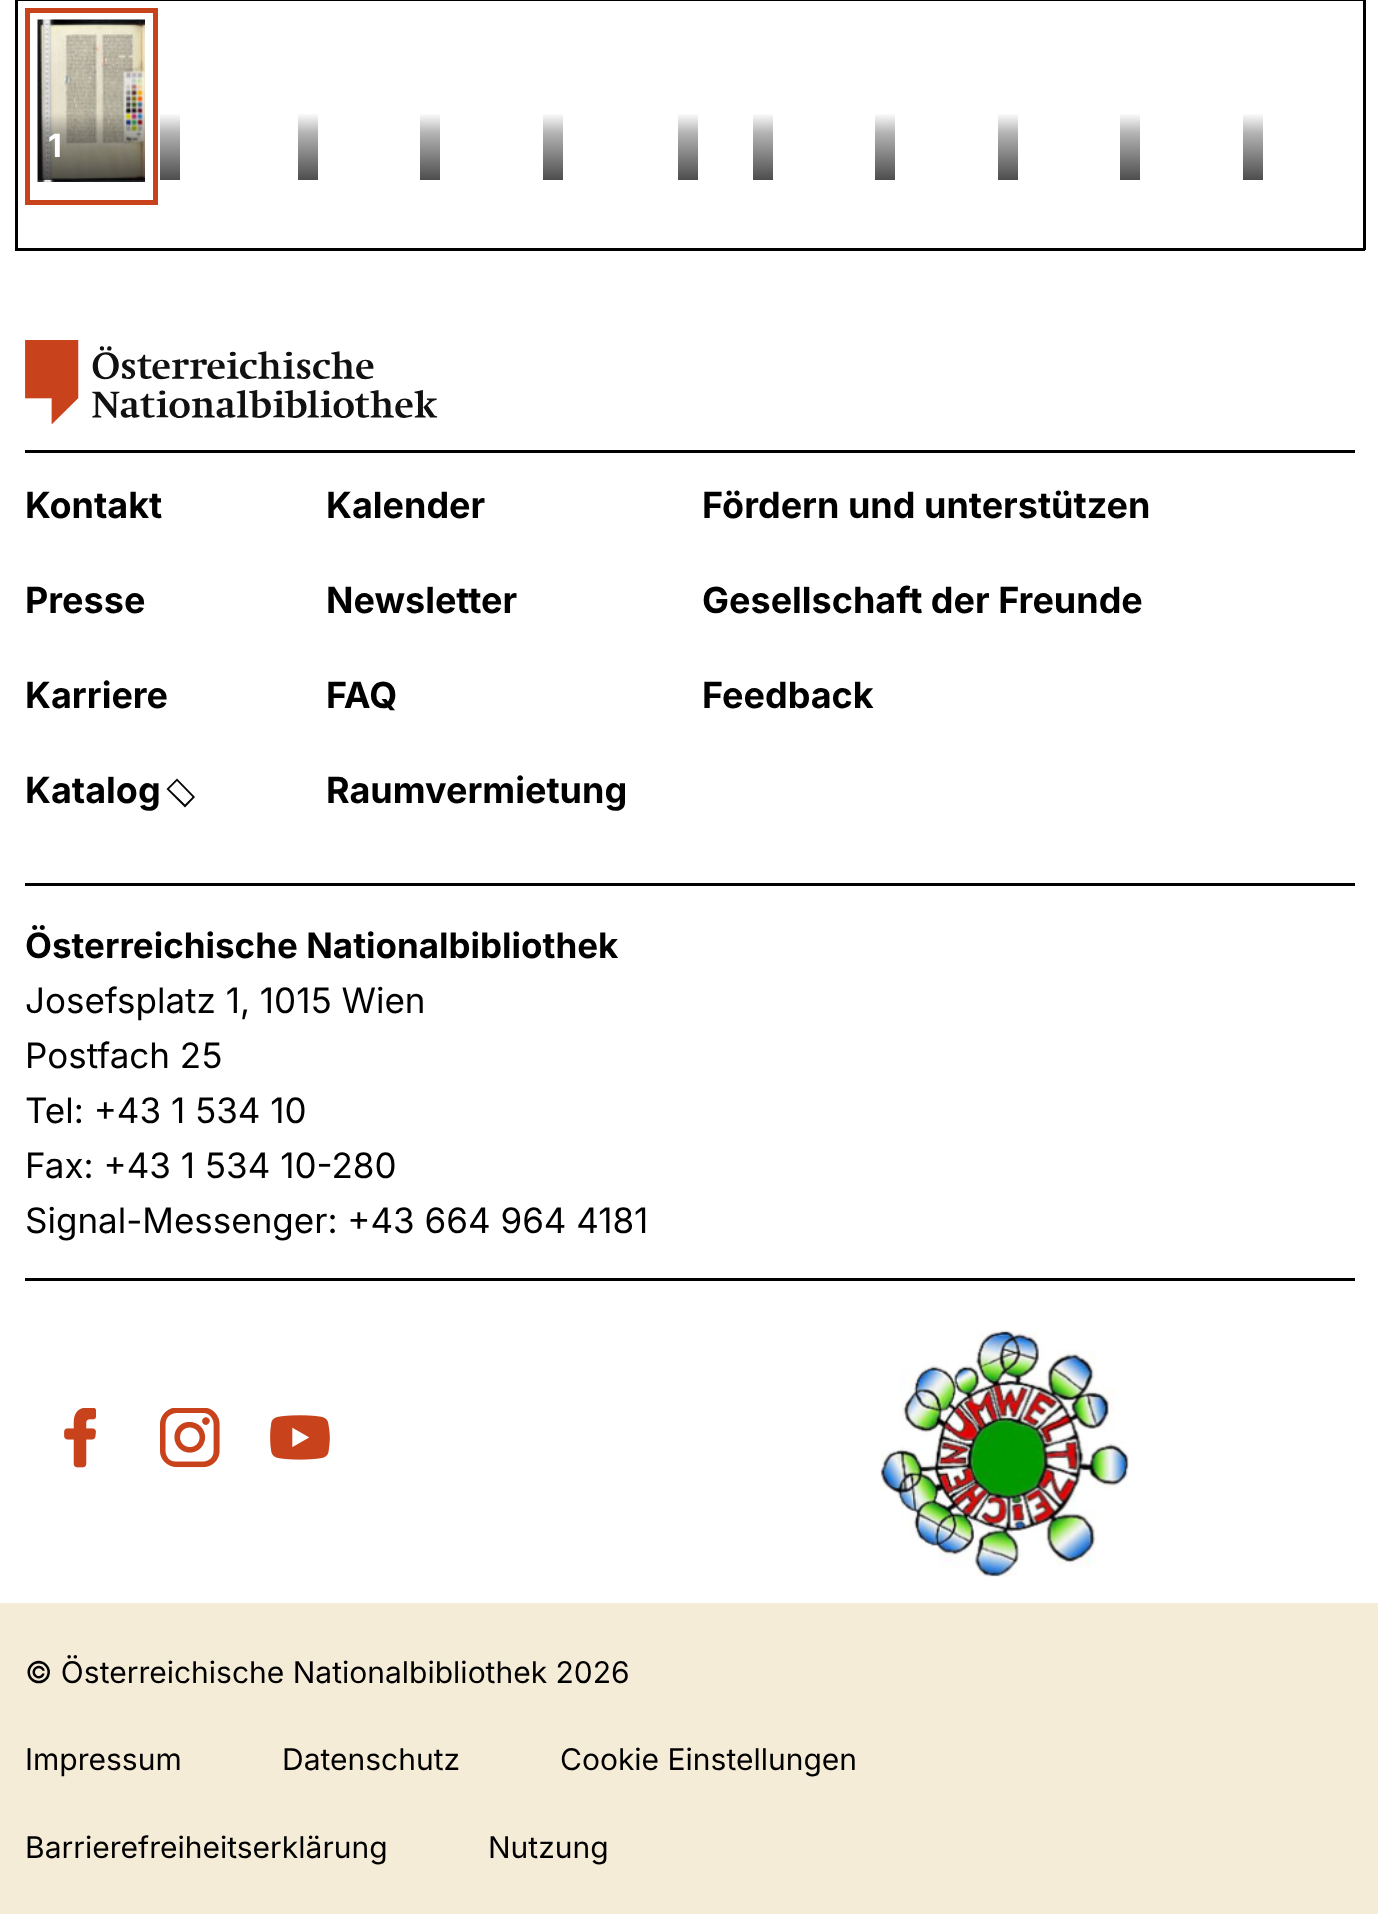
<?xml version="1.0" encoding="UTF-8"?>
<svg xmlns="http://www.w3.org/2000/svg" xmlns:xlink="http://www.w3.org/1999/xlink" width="1378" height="1914">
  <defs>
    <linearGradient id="g1" gradientUnits="userSpaceOnUse" x1="170" y1="180" x2="170" y2="113"><stop offset="0" stop-color="#4d4d4d" /><stop offset="0.7" stop-color="#b3b3b3" /><stop offset="1" stop-color="#ffffff" /></linearGradient>
    <linearGradient id="g2" gradientUnits="userSpaceOnUse" x1="308" y1="180" x2="308" y2="113"><stop offset="0" stop-color="#4d4d4d" /><stop offset="0.7" stop-color="#b3b3b3" /><stop offset="1" stop-color="#ffffff" /></linearGradient>
    <linearGradient id="g3" gradientUnits="userSpaceOnUse" x1="430" y1="180" x2="430" y2="113"><stop offset="0" stop-color="#4d4d4d" /><stop offset="0.7" stop-color="#b3b3b3" /><stop offset="1" stop-color="#ffffff" /></linearGradient>
    <linearGradient id="g4" gradientUnits="userSpaceOnUse" x1="553" y1="180" x2="553" y2="113"><stop offset="0" stop-color="#4d4d4d" /><stop offset="0.7" stop-color="#b3b3b3" /><stop offset="1" stop-color="#ffffff" /></linearGradient>
    <linearGradient id="g5" gradientUnits="userSpaceOnUse" x1="688" y1="180" x2="688" y2="113"><stop offset="0" stop-color="#4d4d4d" /><stop offset="0.7" stop-color="#b3b3b3" /><stop offset="1" stop-color="#ffffff" /></linearGradient>
    <linearGradient id="g6" gradientUnits="userSpaceOnUse" x1="763" y1="180" x2="763" y2="113"><stop offset="0" stop-color="#4d4d4d" /><stop offset="0.7" stop-color="#b3b3b3" /><stop offset="1" stop-color="#ffffff" /></linearGradient>
    <linearGradient id="g7" gradientUnits="userSpaceOnUse" x1="885" y1="180" x2="885" y2="113"><stop offset="0" stop-color="#4d4d4d" /><stop offset="0.7" stop-color="#b3b3b3" /><stop offset="1" stop-color="#ffffff" /></linearGradient>
    <linearGradient id="g8" gradientUnits="userSpaceOnUse" x1="1008" y1="180" x2="1008" y2="113"><stop offset="0" stop-color="#4d4d4d" /><stop offset="0.7" stop-color="#b3b3b3" /><stop offset="1" stop-color="#ffffff" /></linearGradient>
    <linearGradient id="g9" gradientUnits="userSpaceOnUse" x1="1130" y1="180" x2="1130" y2="113"><stop offset="0" stop-color="#4d4d4d" /><stop offset="0.7" stop-color="#b3b3b3" /><stop offset="1" stop-color="#ffffff" /></linearGradient>
    <linearGradient id="g10" gradientUnits="userSpaceOnUse" x1="1253" y1="180" x2="1253" y2="113"><stop offset="0" stop-color="#4d4d4d" /><stop offset="0.7" stop-color="#b3b3b3" /><stop offset="1" stop-color="#ffffff" /></linearGradient>
  </defs>
  <rect width="100%" height="100%" fill="#ffffff" />
  <rect x="1363" width="3" height="250" fill="#000000" />
  <rect x="15" y="248" width="1350" height="3" fill="#000000" />
  <rect x="15" width="3" height="250" fill="#000000" />
  <rect x="18" width="1345" height="1" fill="#000000" />
  <rect x="27.5" y="10.5" width="128" height="192" fill="none" stroke="#c8421c" stroke-width="5" />
  <image x="37" y="19" width="108" height="163" xlink:href="image1.png" />
  <rect x="160" y="114" width="20" height="66" fill="url(#g1)" />
  <rect x="298" y="114" width="20" height="66" fill="url(#g2)" />
  <rect x="420" y="114" width="20" height="66" fill="url(#g3)" />
  <rect x="543" y="114" width="20" height="66" fill="url(#g4)" />
  <rect x="678" y="114" width="20" height="66" fill="url(#g5)" />
  <rect x="753" y="114" width="20" height="66" fill="url(#g6)" />
  <rect x="875" y="114" width="20" height="66" fill="url(#g7)" />
  <rect x="998" y="114" width="20" height="66" fill="url(#g8)" />
  <rect x="1120" y="114" width="20" height="66" fill="url(#g9)" />
  <rect x="1243" y="114" width="20" height="66" fill="url(#g10)" />
  <rect x="25" y="450" width="1330" height="3" fill="#000000" />
  <image x="25" y="340" width="413" height="85" xlink:href="image2.png" />
  <rect x="25" y="883" width="1330" height="3" fill="#000000" />
  <path d="M 185 807.5 l -18.5 -18.5 l 10.5 -10.5 l 18 18.5 z m 0 -3 l 7.5 -7.5 l -15.5 -16 l -8 8 z" fill="#000000" />
  <rect x="25" y="1278" width="1330" height="3" fill="#000000" />
  <image x="64" y="1408" width="32" height="60" xlink:href="image3.png" />
  <image x="160" y="1408" width="60" height="60" xlink:href="image4.png" />
  <image x="270" y="1415" width="60" height="45" xlink:href="image5.png" />
  <image x="880" y="1330" width="249" height="247" xlink:href="image6.png" />
  <rect y="1603" width="1378" height="311" fill="#f5ecd8" />
  <text x="48" y="157" style="font-family: Inter; font-size: 32px; font-weight: bold; letter-spacing: 1px; fill: #ffffff">1</text>
  <text x="25" y="518" style="font-family: Inter; font-size: 36px; font-weight: bold; fill: #000000">Kontakt</text>
  <text x="25" y="613" style="font-family: Inter; font-size: 36px; font-weight: bold; fill: #000000">Presse</text>
  <text x="25" y="708" style="font-family: Inter; font-size: 36px; font-weight: bold; fill: #000000">Karriere</text>
  <text x="25" y="803" style="font-family: Inter; font-size: 36px; font-weight: bold; fill: #000000">Katalog</text>
  <text x="326" y="518" style="font-family: Inter; font-size: 36px; font-weight: bold; fill: #000000">Kalender</text>
  <text x="326" y="613" style="font-family: Inter; font-size: 36px; font-weight: bold; fill: #000000">Newsletter</text>
  <text x="326" y="708" style="font-family: Inter; font-size: 36px; font-weight: bold; fill: #000000">FAQ</text>
  <text x="326" y="803" style="font-family: Inter; font-size: 36px; font-weight: bold; fill: #000000">Raumvermietung</text>
  <text x="702" y="518" style="font-family: Inter; font-size: 36px; font-weight: bold; fill: #000000">Fördern und unterstützen</text>
  <text x="702" y="613" style="font-family: Inter; font-size: 36px; font-weight: bold; fill: #000000">Gesellschaft der Freunde</text>
  <text x="702" y="708" style="font-family: Inter; font-size: 36px; font-weight: bold; fill: #000000">Feedback</text>
  <text x="25" y="958" style="font-family: Inter; font-size: 35px; font-weight: bold; fill: #000000">Österreichische Nationalbibliothek</text>
  <text x="25" y="1013" style="font-family: Inter; font-size: 35px; fill: #000000">Josefsplatz 1, 1015 Wien</text>
  <text x="25" y="1068" style="font-family: Inter; font-size: 35px; fill: #000000">Postfach 25</text>
  <text x="25" y="1123" style="font-family: Inter; font-size: 35px; fill: #000000">Tel: +43 1 534 10</text>
  <text x="25" y="1178" style="font-family: Inter; font-size: 35px; fill: #000000">Fax: +43 1 534 10-280</text>
  <text x="25" y="1233" style="font-family: Inter; font-size: 35px; fill: #000000">Signal-Messenger: +43 664 964 4181</text>
  <text x="25" y="1683" style="font-family: Inter; font-size: 30px; fill: #000000">© Österreichische Nationalbibliothek 2026</text>
  <text x="25" y="1770" style="font-family: Inter; font-size: 30px; fill: #000000">Impressum</text>
  <text x="282" y="1770" style="font-family: Inter; font-size: 30px; fill: #000000">Datenschutz</text>
  <text x="560" y="1770" style="font-family: Inter; font-size: 30px; fill: #000000">Cookie Einstellungen</text>
  <text x="25" y="1858" style="font-family: Inter; font-size: 30px; fill: #000000">Barrierefreiheitserklärung</text>
  <text x="488" y="1858" style="font-family: Inter; font-size: 30px; fill: #000000">Nutzung</text>
</svg>
